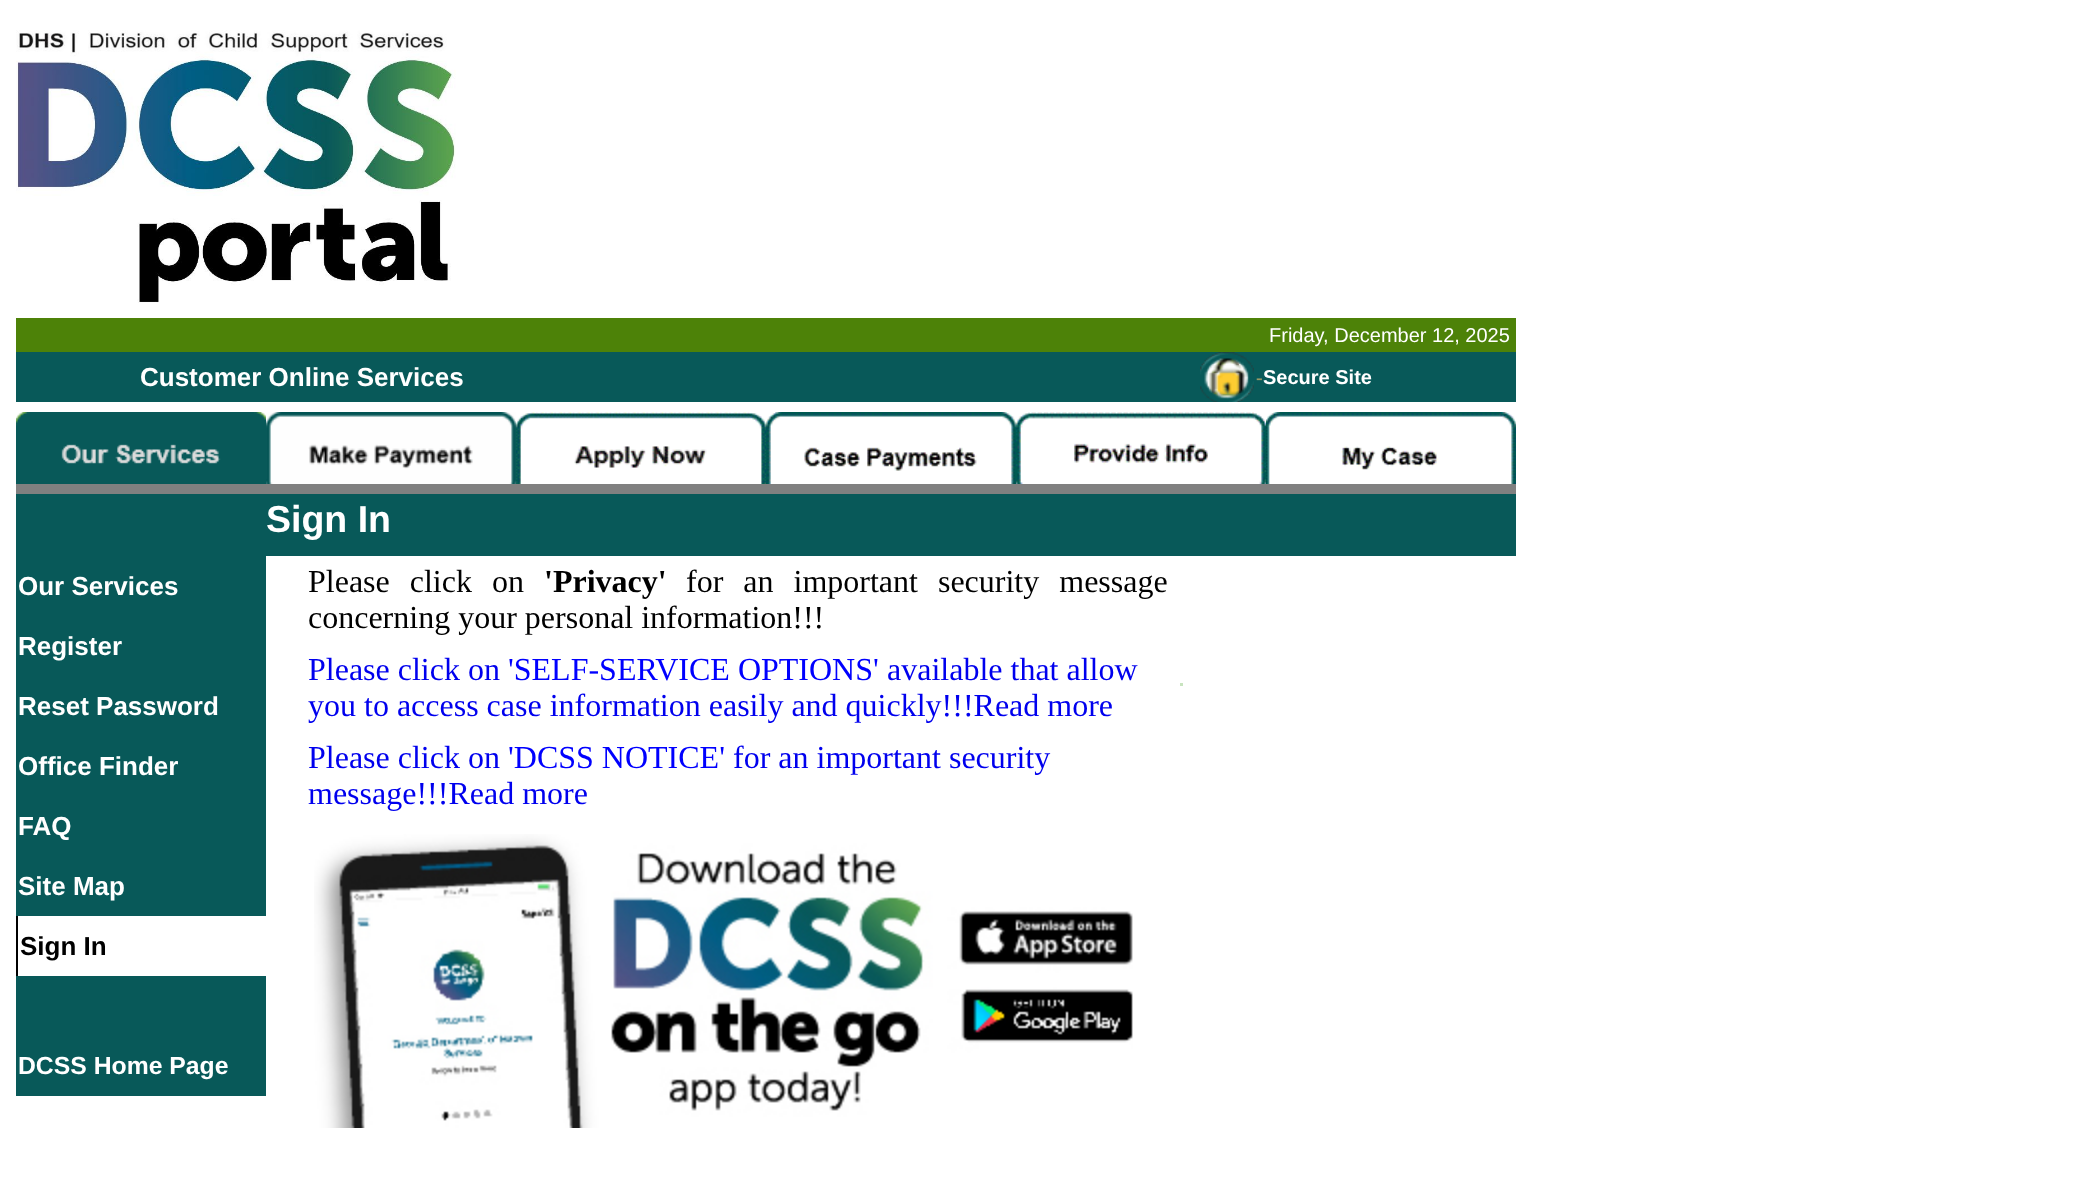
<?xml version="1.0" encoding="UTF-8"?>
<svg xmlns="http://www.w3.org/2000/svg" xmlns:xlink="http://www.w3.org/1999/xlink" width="2098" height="1183">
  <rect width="100%" height="100%" fill="#ffffff" />
  <image x="16" y="30" width="440" height="273" xlink:href="image1.png" />
  <rect x="16" y="318" width="1500" height="34" fill="#4d8208" />
  <rect x="16" y="352" width="1500" height="50" fill="#085959" />
  <image x="1200" y="352" width="54" height="50" xlink:href="image2.png" />
  <rect x="16" y="464" width="250" height="20" fill="#085959" />
  <image x="16" y="412" width="250" height="52" xlink:href="image3.png" />
  <image x="266" y="412" width="250" height="72" xlink:href="image4.png" />
  <image x="516" y="412" width="250" height="72" xlink:href="image5.png" />
  <image x="766" y="412" width="250" height="72" xlink:href="image6.png" />
  <image x="1016" y="412" width="250" height="72" xlink:href="image7.png" />
  <image x="1266" y="412" width="250" height="72" xlink:href="image8.png" />
  <rect x="16" y="494" width="1500" height="62" fill="#085959" />
  <rect x="16" y="484" width="1500" height="10" fill="#808080" />
  <rect x="16" y="556" width="250" height="360" fill="#085959" />
  <rect x="16" y="916" width="2" height="60" fill="#000000" />
  <rect x="16" y="976" width="250" height="120" fill="#085959" />
  <image x="314" y="834" width="819" height="294" xlink:href="image9.png" />
  <rect x="1180" y="683" width="3" height="3" fill="#c8e4bf" />
  <text x="1269" y="342" style="font-family: Liberation Sans; font-size: 20px; fill: #ffffff">Friday, December 12, 2025</text>
  <text x="140" y="386" style="font-family: Liberation Sans; font-size: 26px; font-weight: bold; fill: #ffffff">Customer Online Services</text>
  <text x="1256" y="384" style="font-family: Liberation Serif; font-size: 20px; font-weight: bold; fill: #999966">-</text>
  <text x="1263" y="384" style="font-family: Liberation Sans; font-size: 20px; font-weight: bold; fill: #ffffff">Secure Site</text>
  <text x="266" y="532" style="font-family: Liberation Sans; font-size: 37.5px; font-weight: bold; fill: #ffffff">Sign In</text>
  <text x="18" y="595" style="font-family: Liberation Sans; font-size: 26px; font-weight: bold; fill: #ffffff">Our Services</text>
  <text x="18" y="655" style="font-family: Liberation Sans; font-size: 26px; font-weight: bold; fill: #ffffff">Register</text>
  <text x="18" y="715" style="font-family: Liberation Sans; font-size: 26px; font-weight: bold; fill: #ffffff">Reset Password</text>
  <text x="18" y="775" style="font-family: Liberation Sans; font-size: 26px; font-weight: bold; fill: #ffffff">Office Finder</text>
  <text x="18" y="835" style="font-family: Liberation Sans; font-size: 26px; font-weight: bold; fill: #ffffff">FAQ</text>
  <text x="18" y="895" style="font-family: Liberation Sans; font-size: 26px; font-weight: bold; fill: #ffffff">Site Map</text>
  <text x="20" y="955" style="font-family: Liberation Sans; font-size: 26px; font-weight: bold; fill: #000000">Sign In</text>
  <text x="18" y="1074" style="font-family: Liberation Sans; font-size: 24.75px; font-weight: bold; fill: #ffffff">DCSS Home Page</text>
  <text x="308" y="592" word-spacing="12" style="font-family: Liberation Serif; font-size: 32px; fill: #000000">Please click on</text>
  <text x="544" y="592" style="font-family: Liberation Serif; font-size: 32px; font-weight: bold; fill: #000000">'Privacy'</text>
  <text x="686" y="592" word-spacing="12" style="font-family: Liberation Serif; font-size: 32px; fill: #000000">for an important security message</text>
  <text x="308" y="628" style="font-family: Liberation Serif; font-size: 32px; fill: #000000">concerning your personal information!!!</text>
  <text x="308" y="680" style="font-family: Liberation Serif; font-size: 32px; fill: #0000ee">Please click on</text>
  <text x="508" y="680" style="font-family: Liberation Serif; font-size: 32px; fill: #0000ff">'SELF-SERVICE OPTIONS'</text>
  <text x="887" y="680" style="font-family: Liberation Serif; font-size: 32px; fill: #0000ee">available that allow</text>
  <text x="308" y="716" style="font-family: Liberation Serif; font-size: 32px; fill: #0000ee">you to access case information easily and quickly!!!Read more</text>
  <text x="308" y="768" style="font-family: Liberation Serif; font-size: 32px; fill: #0000ee">Please click on</text>
  <text x="508" y="768" style="font-family: Liberation Serif; font-size: 32px; fill: #0000ff">'DCSS NOTICE'</text>
  <text x="733" y="768" style="font-family: Liberation Serif; font-size: 32px; fill: #0000ee">for an important security</text>
  <text x="308" y="804" style="font-family: Liberation Serif; font-size: 32px; fill: #0000ee">message!!!Read more</text>
</svg>
